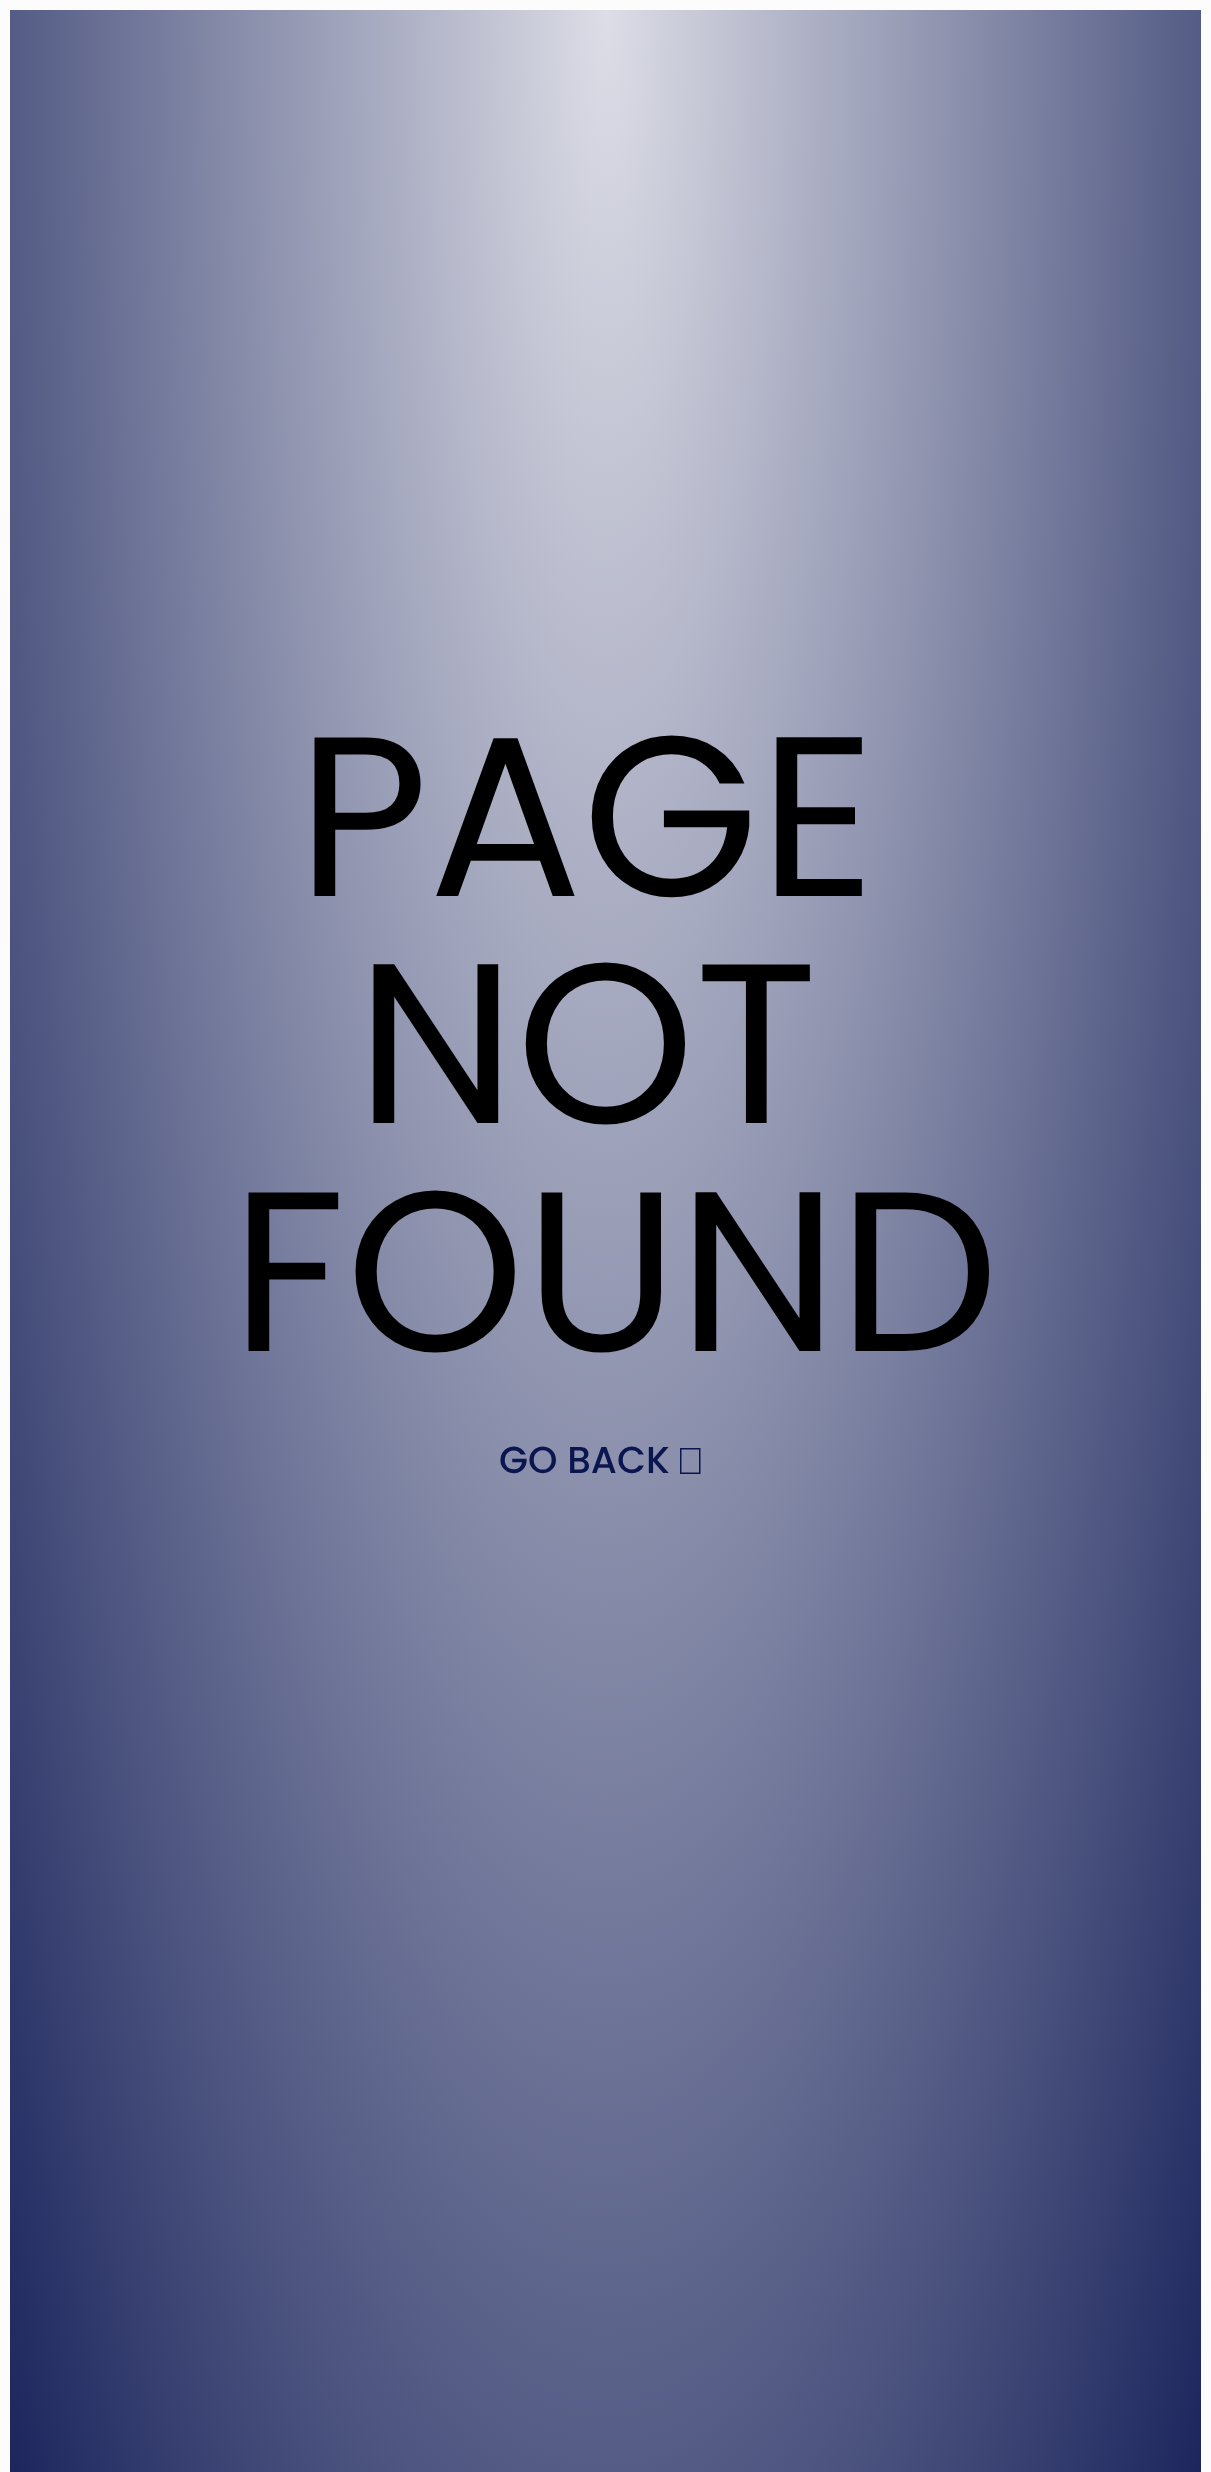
<?xml version="1.0" encoding="UTF-8"?>
<svg xmlns="http://www.w3.org/2000/svg" xmlns:xlink="http://www.w3.org/1999/xlink" width="1211" height="2472">
  <defs>
    <radialGradient id="g1" gradientUnits="userSpaceOnUse" cx="0" cy="0" r="1" gradientTransform="matrix(842 0 0 3497 606 10)"><stop offset="0" stop-color="#dcdde6" /><stop offset="1" stop-color="#1c265d" /></radialGradient>
  </defs>
  <rect width="100%" height="100%" fill="#fcfcfc" />
  <rect x="10" y="10" width="1191" height="2462" fill="url(#g1)" />
  <path d="M 680 1448 h 20.5 v 26 h -20.5 z m 1.5 1.5 v 23 h 17.5 v -23 z" fill="#0b1651" />
  <text x="297" y="896" style="font-family: Poppins; font-size: 227.5px; fill: #000000">PAGE</text>
  <text x="356" y="1123" style="font-family: Poppins; font-size: 227.5px; fill: #000000">NOT</text>
  <text x="231" y="1351" style="font-family: Poppins; font-size: 227.5px; fill: #000000">FOUND</text>
  <text x="499" y="1473" style="font-family: Poppins; font-size: 37.5px; font-weight: 500; fill: #0b1651">GO BACK</text>
</svg>
